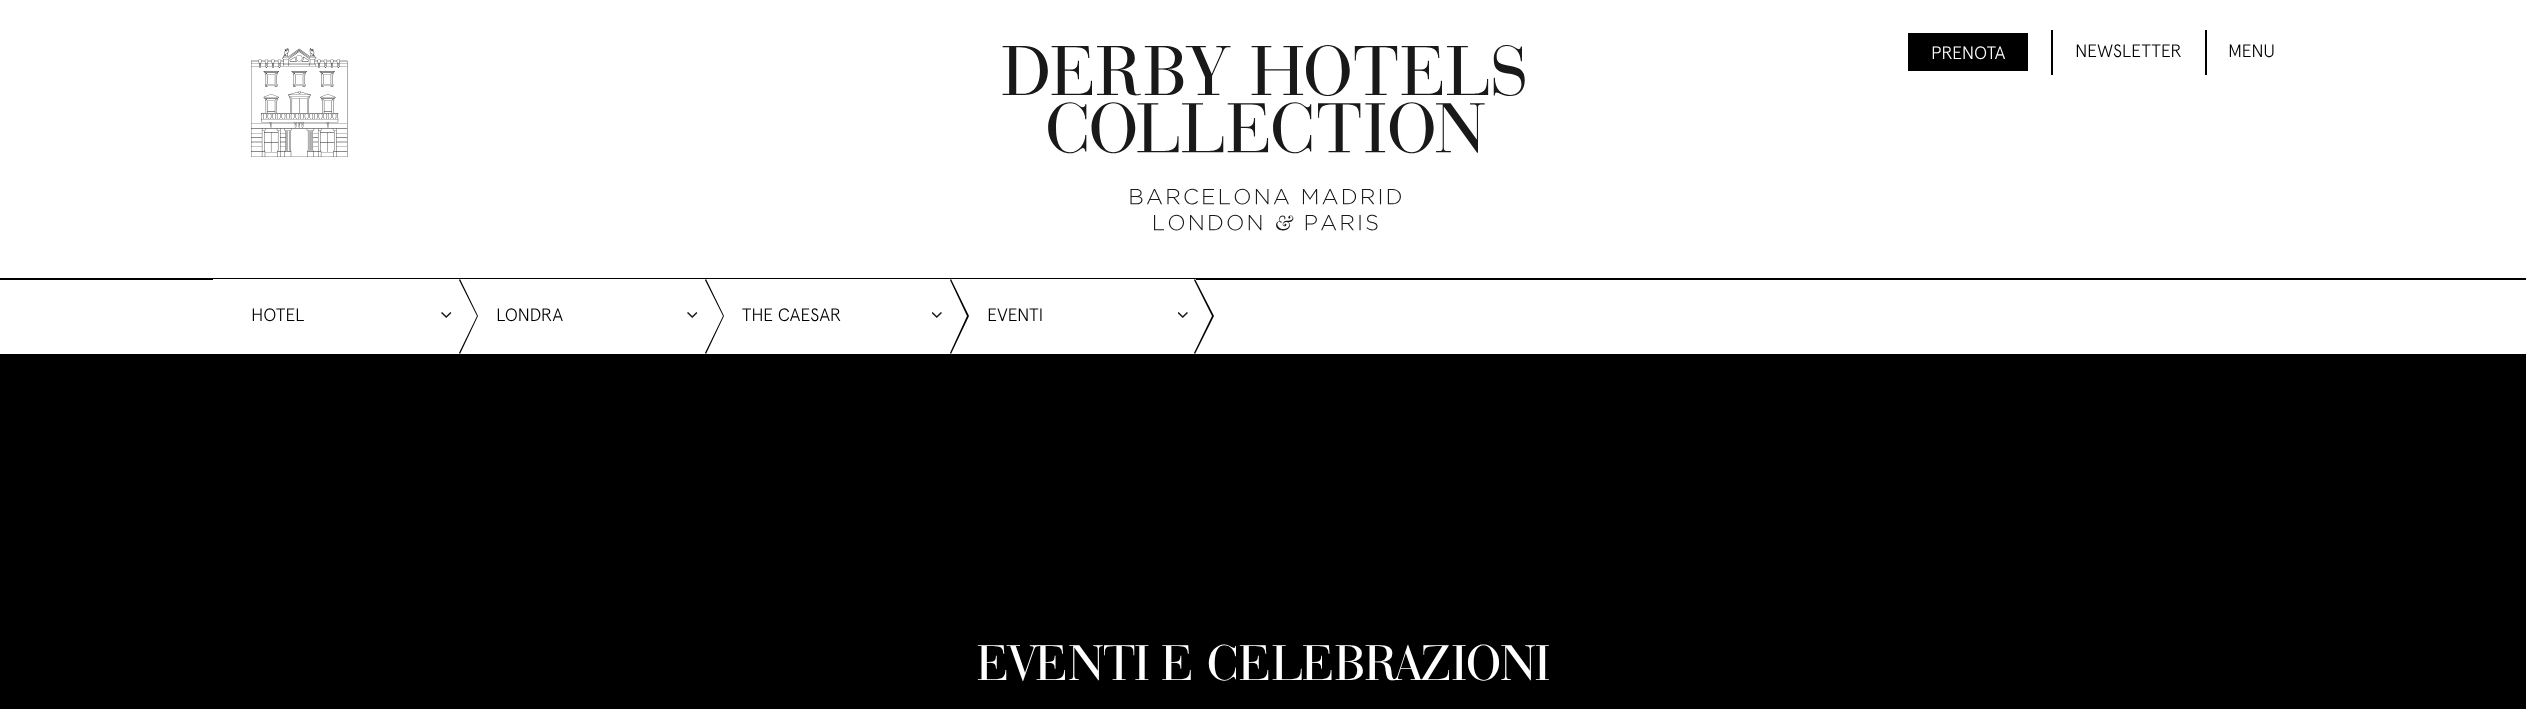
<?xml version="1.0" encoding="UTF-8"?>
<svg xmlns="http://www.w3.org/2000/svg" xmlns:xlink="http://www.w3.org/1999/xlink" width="2526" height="709">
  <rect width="100%" height="100%" fill="#ffffff" />
  <image x="251" y="48" width="97" height="109" xlink:href="image1.png" />
  <image x="1002" y="45" width="523" height="186" xlink:href="image2.png" />
  <rect x="2051" y="30" width="2" height="45" fill="#000000" />
  <rect x="1908" y="33" width="120" height="38" fill="#000000" />
  <rect x="2205" y="30" width="2" height="45" fill="#000000" />
  <rect y="278" width="2526" height="2" fill="#000000" />
  <rect x="213" y="279" width="983" height="1" fill="#ffffff" />
  <image x="441" y="312" width="11" height="6" xlink:href="image3.png" />
  <path d="M 460 354 l -1 -1 l 18 -37 l -18 -36 l 1 -1 l 18 37 z" fill="#010202" />
  <image x="687" y="312" width="11" height="6" xlink:href="image3.png" />
  <path d="M 706 354 l -1 -1 l 18 -37 l -18 -36 l 1 -1 l 18 37 z" fill="#010202" />
  <image x="932" y="312" width="10" height="6" xlink:href="image4.png" />
  <path d="M 951 354 l -1 -1 l 17 -37 l -17 -36 l 1 -1 l 18 37 z" fill="#010202" />
  <image x="1178" y="312" width="10" height="6" xlink:href="image4.png" />
  <path d="M 1195 354 l -1 -1 l 18 -37 l -18 -36 l 1 -1 l 19 37 z" fill="#010202" />
  <rect y="354" width="2526" height="355" fill="#000000" />
  <text x="1931" y="59" style="font-family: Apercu; font-size: 18px; font-weight: 300; fill: #ffffff">PRENOTA</text>
  <text x="2075" y="57" style="font-family: Apercu; font-size: 18px; font-weight: 300; fill: #000000">NEWSLETTER</text>
  <text x="2228" y="57" style="font-family: Apercu; font-size: 18px; font-weight: 300; fill: #000000">MENU</text>
  <text x="251" y="321" style="font-family: Apercu; font-size: 18px; font-weight: 300; fill: #000000">HOTEL</text>
  <text x="496" y="321" style="font-family: Apercu; font-size: 18px; font-weight: 300; fill: #000000">LONDRA</text>
  <text x="742" y="321" style="font-family: Apercu; font-size: 18px; font-weight: 300; fill: #000000">THE CAESAR</text>
  <text x="987" y="321" style="font-family: Apercu; font-size: 18px; font-weight: 300; fill: #000000">EVENTI</text>
  <text x="977" y="680" style="font-family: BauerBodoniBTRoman; font-size: 52.5px; fill: #ffffff">EVENTI E CELEBRAZIONI</text>
</svg>
